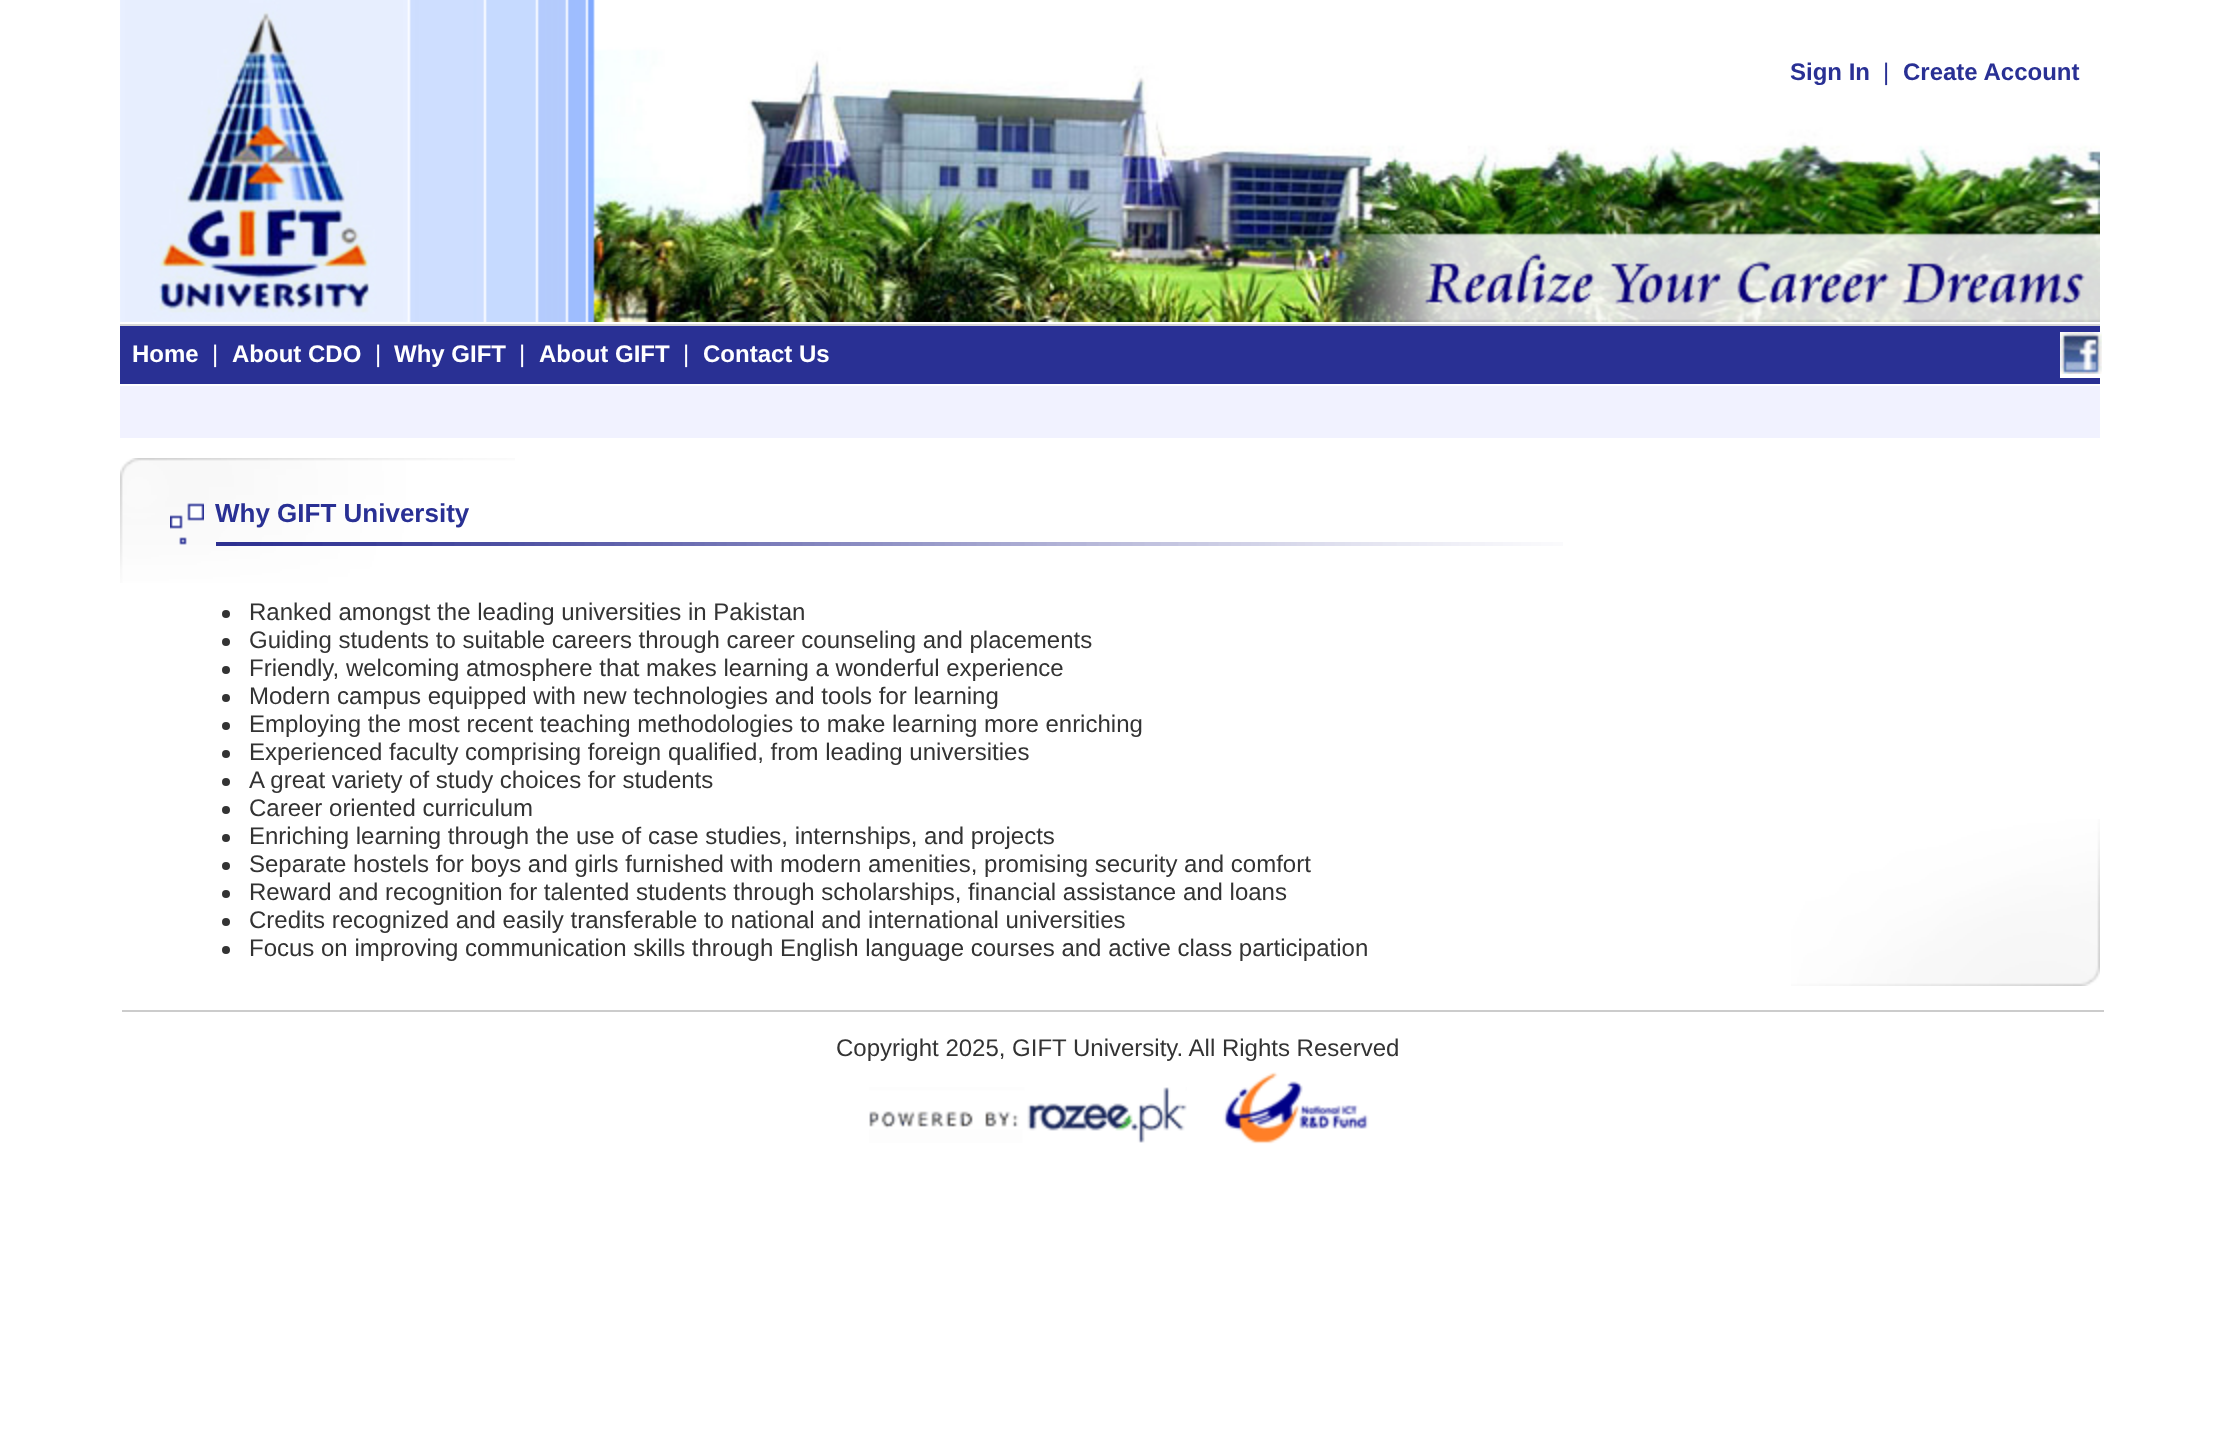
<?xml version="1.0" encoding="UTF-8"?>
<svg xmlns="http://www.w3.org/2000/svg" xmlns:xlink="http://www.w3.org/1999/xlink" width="2218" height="1441">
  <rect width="100%" height="100%" fill="#ffffff" />
  <image x="120" y="0" width="1980" height="322" xlink:href="image1.png" />
  <rect x="120" y="326" width="1980" height="58" fill="#293094" />
  <rect x="120" y="324" width="1980" height="2" fill="#d7d7d7" />
  <rect x="2060" y="374" width="40" height="4" fill="#ffffff" />
  <image x="2060" y="332" width="42" height="42" xlink:href="image2.png" />
  <rect x="120" y="386" width="1980" height="52" fill="#f1f2ff" />
  <image x="120" y="458" width="395" height="125" xlink:href="image3.png" />
  <image x="1791" y="819" width="309" height="167" xlink:href="image4.png" />
  <image x="170" y="503" width="34" height="42" xlink:href="image5.png" />
  <image x="216" y="542" width="1347" height="4" xlink:href="image6.png" />
  <circle cx="226" cy="614" r="4" fill="#333333" />
  <circle cx="226" cy="642" r="4" fill="#333333" />
  <circle cx="226" cy="670" r="4" fill="#333333" />
  <circle cx="226" cy="698" r="4" fill="#333333" />
  <circle cx="226" cy="726" r="4" fill="#333333" />
  <circle cx="226" cy="754" r="4" fill="#333333" />
  <circle cx="226" cy="782" r="4" fill="#333333" />
  <circle cx="226" cy="810" r="4" fill="#333333" />
  <circle cx="226" cy="838" r="4" fill="#333333" />
  <circle cx="226" cy="866" r="4" fill="#333333" />
  <circle cx="226" cy="894" r="4" fill="#333333" />
  <circle cx="226" cy="922" r="4" fill="#333333" />
  <circle cx="226" cy="950" r="4" fill="#333333" />
  <rect x="120" y="1010" width="1984" height="2" fill="#cccccc" />
  <rect x="120" y="1006" width="2" height="6" fill="#ffffff" />
  <image x="869" y="1087" width="318" height="56" xlink:href="image7.png" />
  <image x="1223" y="1072" width="146" height="72" xlink:href="image8.png" />
  <text x="1790" y="80" style="font-family: Liberation Sans; font-size: 24px; font-weight: bold; fill: #293094">Sign In</text>
  <text x="1883" y="80" style="font-family: Liberation Sans; font-size: 24px; fill: #293094">|</text>
  <text x="1903" y="80" style="font-family: Liberation Sans; font-size: 24px; font-weight: bold; fill: #293094">Create Account</text>
  <text x="132" y="362" style="font-family: Liberation Sans; font-size: 24px; font-weight: bold; fill: #ffffff">Home</text>
  <text x="212" y="362" style="font-family: Liberation Sans; font-size: 24px; fill: #ffffff">|</text>
  <text x="232" y="362" style="font-family: Liberation Sans; font-size: 24px; font-weight: bold; fill: #ffffff">About CDO</text>
  <text x="375" y="362" style="font-family: Liberation Sans; font-size: 24px; fill: #ffffff">|</text>
  <text x="394" y="362" style="font-family: Liberation Sans; font-size: 24px; font-weight: bold; fill: #ffffff">Why GIFT</text>
  <text x="519" y="362" style="font-family: Liberation Sans; font-size: 24px; fill: #ffffff">|</text>
  <text x="539" y="362" style="font-family: Liberation Sans; font-size: 24px; font-weight: bold; fill: #ffffff">About GIFT</text>
  <text x="683" y="362" style="font-family: Liberation Sans; font-size: 24px; fill: #ffffff">|</text>
  <text x="703" y="362" style="font-family: Liberation Sans; font-size: 24px; font-weight: bold; fill: #ffffff">Contact Us</text>
  <text x="215" y="522" style="font-family: Liberation Sans; font-size: 26px; font-weight: bold; fill: #293094">Why GIFT University</text>
  <text x="249" y="620" style="font-family: Liberation Sans; font-size: 24px; fill: #333333">Ranked amongst the leading universities in Pakistan</text>
  <text x="249" y="648" style="font-family: Liberation Sans; font-size: 24px; fill: #333333">Guiding students to suitable careers through career counseling and placements</text>
  <text x="249" y="676" style="font-family: Liberation Sans; font-size: 24px; fill: #333333">Friendly, welcoming atmosphere that makes learning a wonderful experience</text>
  <text x="249" y="704" style="font-family: Liberation Sans; font-size: 24px; fill: #333333">Modern campus equipped with new technologies and tools for learning</text>
  <text x="249" y="732" style="font-family: Liberation Sans; font-size: 24px; fill: #333333">Employing the most recent teaching methodologies to make learning more enriching</text>
  <text x="249" y="760" style="font-family: Liberation Sans; font-size: 24px; fill: #333333">Experienced faculty comprising foreign qualified, from leading universities</text>
  <text x="249" y="788" style="font-family: Liberation Sans; font-size: 24px; fill: #333333">A great variety of study choices for students</text>
  <text x="249" y="816" style="font-family: Liberation Sans; font-size: 24px; fill: #333333">Career oriented curriculum</text>
  <text x="249" y="844" style="font-family: Liberation Sans; font-size: 24px; fill: #333333">Enriching learning through the use of case studies, internships, and projects</text>
  <text x="249" y="872" style="font-family: Liberation Sans; font-size: 24px; fill: #333333">Separate hostels for boys and girls furnished with modern amenities, promising security and comfort</text>
  <text x="249" y="900" style="font-family: Liberation Sans; font-size: 24px; fill: #333333">Reward and recognition for talented students through scholarships, financial assistance and loans</text>
  <text x="249" y="928" style="font-family: Liberation Sans; font-size: 24px; fill: #333333">Credits recognized and easily transferable to national and international universities</text>
  <text x="249" y="956" style="font-family: Liberation Sans; font-size: 24px; fill: #333333">Focus on improving communication skills through English language courses and active class participation</text>
  <text x="836" y="1056" style="font-family: Liberation Sans; font-size: 24px; fill: #333333">Copyright 2025, GIFT University. All Rights Reserved</text>
</svg>
